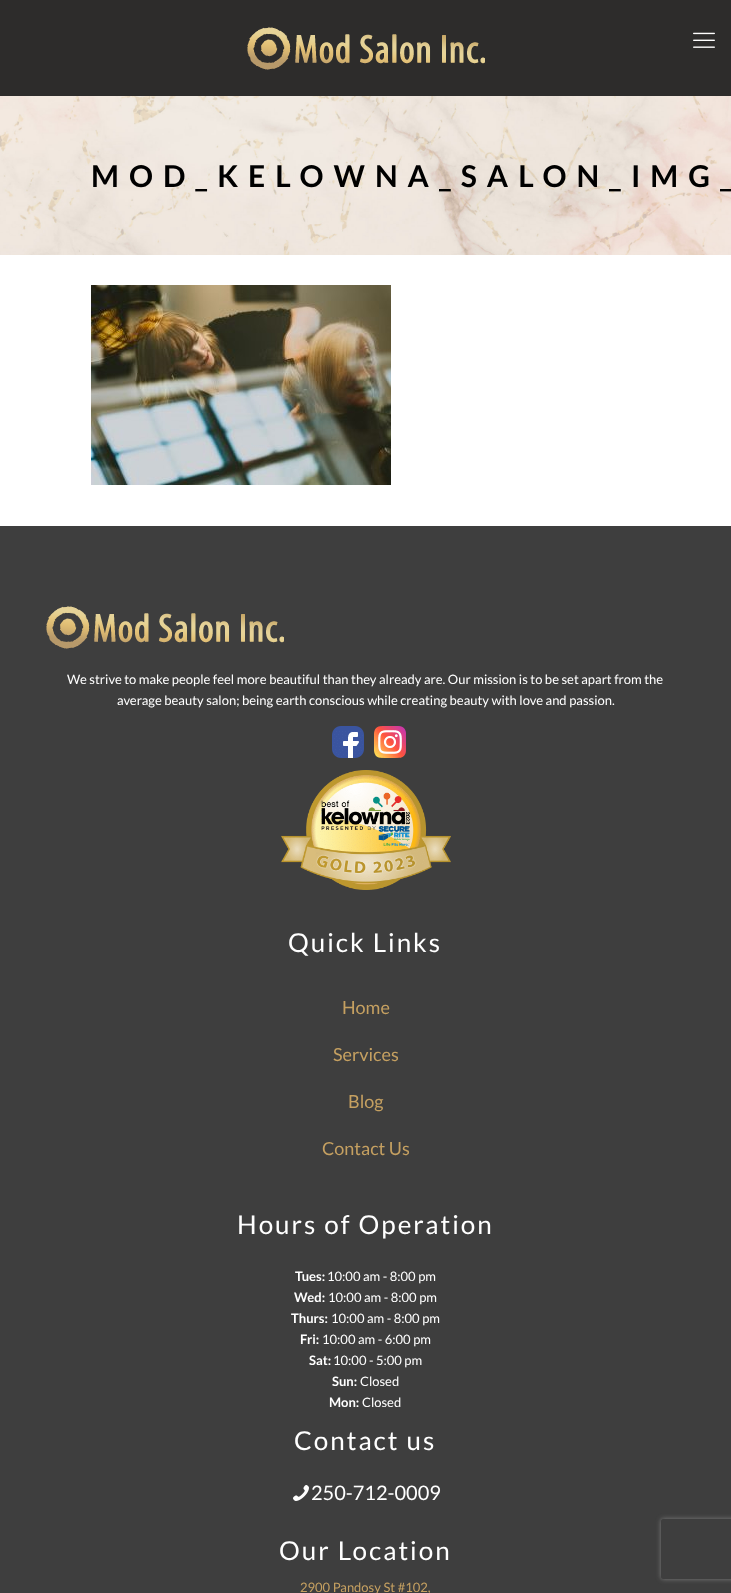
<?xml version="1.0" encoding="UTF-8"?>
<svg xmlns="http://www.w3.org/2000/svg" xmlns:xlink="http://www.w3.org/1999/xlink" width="731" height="1593">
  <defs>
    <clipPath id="clip1"><path d="M 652 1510 h 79 v 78 h -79 z m 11 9 h 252 c 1 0 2 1 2 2 v 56 c 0 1 -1 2 -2 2 h -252 c -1 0 -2 -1 -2 -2 v -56 c 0 -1 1 -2 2 -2 z" clip-rule="evenodd" /></clipPath>
  </defs>
  <rect width="100%" height="100%" fill="#ffffff" />
  <rect width="731" height="96" fill="#2d2c2b" />
  <image x="247" y="27" width="238" height="43" xlink:href="image1.png" />
  <image x="693" y="32" width="22" height="16" xlink:href="image2.png" />
  <image x="0" y="96" width="731" height="159" xlink:href="image3.png" />
  <image x="91" y="285" width="300" height="200" xlink:href="image4.png" />
  <rect y="526" width="731" height="1067" fill="#3e3e3e" />
  <image x="46" y="606" width="238" height="43" xlink:href="image5.png" />
  <image x="332" y="726" width="32" height="32" xlink:href="image6.png" />
  <image x="374" y="726" width="32" height="32" xlink:href="image7.png" />
  <image x="281" y="770" width="170" height="120" xlink:href="image8.png" />
  <image x="293" y="1485" width="16" height="16" xlink:href="image9.png" />
  <g clip-path="url(#clip1)">
    <rect x="661" y="1519" width="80" height="60" rx="2" fill="#808080" filter="blur(2.5px)" />
  </g>
  <text x="91" y="187" style="font-family: Lato; font-size: 30px; font-weight: bold; letter-spacing: 10px; fill: #000000">MOD_KELOWNA_SALON_IMG_</text>
  <text x="67" y="684" style="font-family: Lato; font-size: 13px; fill: #ffffff">We strive to make people feel more beautiful than they already are. Our mission is to be set apart from the</text>
  <text x="117" y="705" style="font-family: Lato; font-size: 13px; fill: #ffffff">average beauty salon; being earth conscious while creating beauty with love and passion.</text>
  <text x="288" y="952" style="font-family: Lato; font-size: 26px; letter-spacing: 2px; fill: #ffffff">Quick Links</text>
  <text x="342" y="1014" style="font-family: Lato; font-size: 18px; fill: #c5a061">Home</text>
  <text x="333" y="1061" style="font-family: Lato; font-size: 18px; fill: #c5a061">Services</text>
  <text x="348" y="1108" style="font-family: Lato; font-size: 18px; fill: #c5a061">Blog</text>
  <text x="322" y="1155" style="font-family: Lato; font-size: 18px; fill: #c5a061">Contact Us</text>
  <text x="237" y="1234" style="font-family: Lato; font-size: 26px; letter-spacing: 2px; fill: #ffffff">Hours of Operation</text>
  <text x="295" y="1281" style="font-family: Lato; font-size: 13px; font-weight: bold; fill: #ffffff">Tues:</text>
  <text x="327" y="1281" style="font-family: Lato; font-size: 13px; fill: #ffffff">10:00 am - 8:00 pm</text>
  <text x="294" y="1302" style="font-family: Lato; font-size: 13px; font-weight: bold; fill: #ffffff">Wed:</text>
  <text x="328" y="1302" style="font-family: Lato; font-size: 13px; fill: #ffffff">10:00 am - 8:00 pm</text>
  <text x="291" y="1323" style="font-family: Lato; font-size: 13px; font-weight: bold; fill: #ffffff">Thurs:</text>
  <text x="331" y="1323" style="font-family: Lato; font-size: 13px; fill: #ffffff">10:00 am - 8:00 pm</text>
  <text x="300" y="1344" style="font-family: Lato; font-size: 13px; font-weight: bold; fill: #ffffff">Fri:</text>
  <text x="322" y="1344" style="font-family: Lato; font-size: 13px; fill: #ffffff">10:00 am - 6:00 pm</text>
  <text x="309" y="1365" style="font-family: Lato; font-size: 13px; font-weight: bold; fill: #ffffff">Sat:</text>
  <text x="333" y="1365" style="font-family: Lato; font-size: 13px; fill: #ffffff">10:00 - 5:00 pm</text>
  <text x="332" y="1386" style="font-family: Lato; font-size: 13px; font-weight: bold; fill: #ffffff">Sun:</text>
  <text x="360" y="1386" style="font-family: Lato; font-size: 13px; fill: #ffffff">Closed</text>
  <text x="329" y="1407" style="font-family: Lato; font-size: 13px; font-weight: bold; fill: #ffffff">Mon:</text>
  <text x="362" y="1407" style="font-family: Lato; font-size: 13px; fill: #ffffff">Closed</text>
  <text x="294" y="1450" style="font-family: Lato; font-size: 26px; letter-spacing: 2px; fill: #ffffff">Contact us</text>
  <text x="311" y="1500" style="font-family: Lato; font-size: 20px; fill: #ffffff">250-712-0009</text>
  <text x="279" y="1560" style="font-family: Lato; font-size: 26px; letter-spacing: 2px; fill: #ffffff">Our Location</text>
  <text x="300" y="1592" style="font-family: Lato; font-size: 13px; fill: #c5a061">2900 Pandosy St #102,</text>
</svg>
